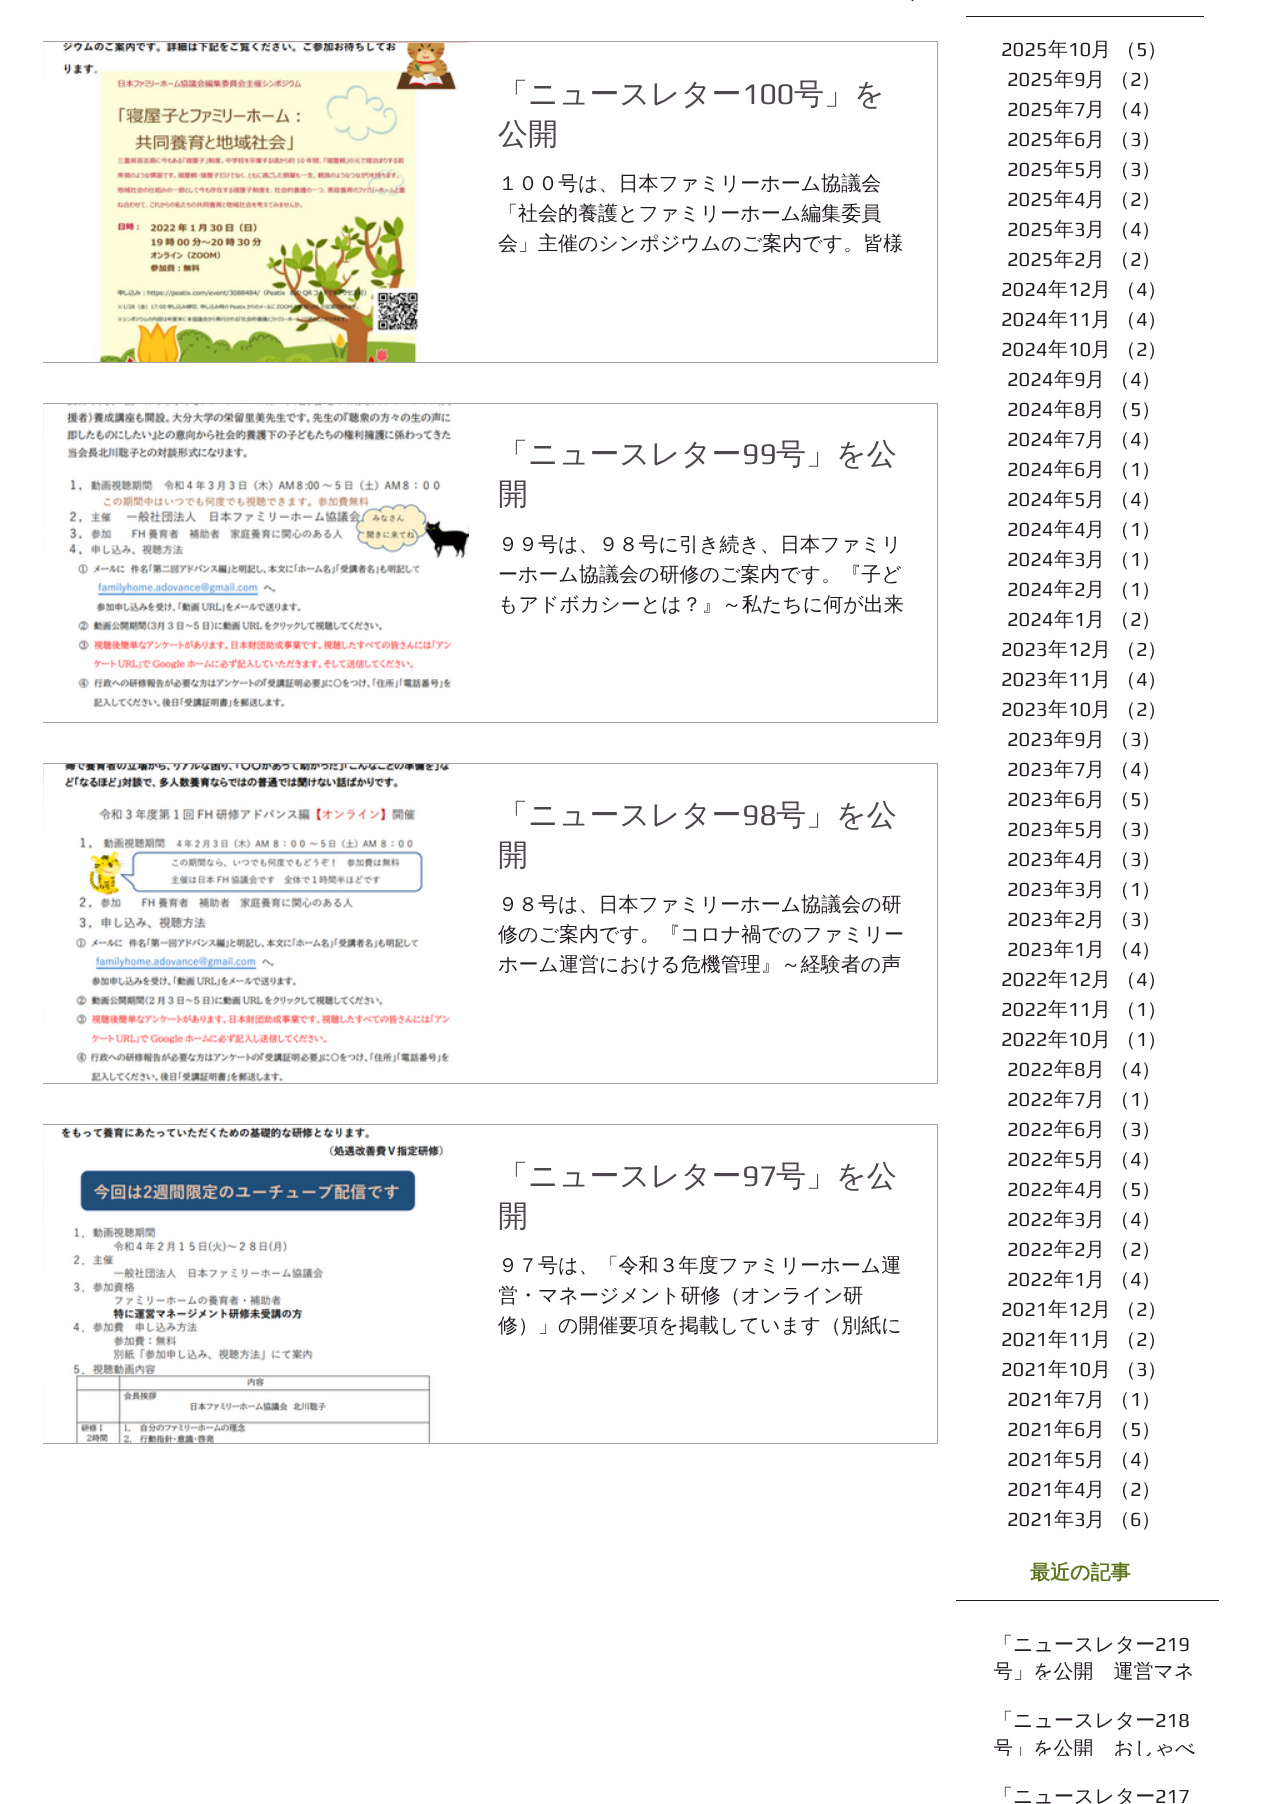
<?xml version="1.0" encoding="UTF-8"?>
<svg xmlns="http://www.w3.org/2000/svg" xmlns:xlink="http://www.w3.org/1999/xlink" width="1268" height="1804">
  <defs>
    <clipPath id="clip1"><rect x="499" y="1251" width="407" height="90" /></clipPath>
    <clipPath id="clip2"><rect x="994" y="1630" width="215" height="50" /></clipPath>
    <clipPath id="clip3"><rect x="994" y="1706" width="215" height="50" /></clipPath>
  </defs>
  <rect width="100%" height="100%" fill="#ffffff" />
  <rect x="966" y="16" width="238" height="1" fill="#221b23" />
  <image x="911" y="0" width="3" height="2" xlink:href="image1.png" />
  <rect x="43.5" y="41.5" width="894" height="321" fill="none" stroke="#a69ea7" />
  <image x="43" y="42" width="427" height="320" xlink:href="image2.png" />
  <image x="44" y="43" width="426" height="319" xlink:href="image3.png" />
  <rect x="43.5" y="403.5" width="894" height="319" fill="none" stroke="#a69ea7" />
  <image x="43" y="404" width="1" height="318" xlink:href="image4.png" />
  <image x="44" y="404" width="426" height="318" xlink:href="image5.png" />
  <rect x="469" y="525" width="1" height="17" fill="#ffffff" />
  <rect x="43.5" y="763.5" width="894" height="320" fill="none" stroke="#a69ea7" />
  <image x="43" y="764" width="1" height="319" xlink:href="image6.png" />
  <image x="44" y="764" width="426" height="319" xlink:href="image7.png" />
  <rect x="43.5" y="1124.5" width="894" height="319" fill="none" stroke="#a69ea7" />
  <image x="43" y="1125" width="1" height="318" xlink:href="image8.png" />
  <image x="44" y="1125" width="426" height="318" xlink:href="image9.png" />
  <rect x="956" y="1600" width="263" height="1" fill="#221b23" />
  <text x="498" y="104" style="font-family: WenQuanYi Zen Hei; font-size: 30px; font-weight: 500; fill: #4e464f">「ニュースレター</text>
  <text x="742" y="104" style="font-family: Play; font-size: 30px; fill: #4e464f">100</text>
  <text x="794" y="104" style="font-family: WenQuanYi Zen Hei; font-size: 30px; font-weight: 500; fill: #4e464f">号」を</text>
  <text x="498" y="144" style="font-family: WenQuanYi Zen Hei; font-size: 30px; font-weight: 500; fill: #4e464f">公開</text>
  <text x="498" y="190" style="font-family: WenQuanYi Zen Hei; font-size: 20px; font-weight: 500; fill: #221b23">１００号は、日本ファミリーホーム協議会</text>
  <text x="498" y="220" style="font-family: WenQuanYi Zen Hei; font-size: 20px; font-weight: 500; fill: #221b23">「社会的養護とファミリーホーム編集委員</text>
  <text x="498" y="250" style="font-family: WenQuanYi Zen Hei; font-size: 20px; font-weight: 500; fill: #221b23">会」主催のシンポジウムのご案内です。皆様</text>
  <text x="498" y="464" style="font-family: WenQuanYi Zen Hei; font-size: 30px; font-weight: 500; fill: #4e464f">「ニュースレター</text>
  <text x="742" y="464" style="font-family: Play; font-size: 30px; fill: #4e464f">99</text>
  <text x="776" y="464" style="font-family: WenQuanYi Zen Hei; font-size: 30px; font-weight: 500; fill: #4e464f">号」を公</text>
  <text x="498" y="504" style="font-family: WenQuanYi Zen Hei; font-size: 30px; font-weight: 500; fill: #4e464f">開</text>
  <text x="498" y="551" style="font-family: WenQuanYi Zen Hei; font-size: 20px; font-weight: 500; fill: #221b23">９９号は、９８号に引き続き、日本ファミリ</text>
  <text x="498" y="581" style="font-family: WenQuanYi Zen Hei; font-size: 20px; font-weight: 500; fill: #221b23">ーホーム協議会の研修のご案内です。『子ど</text>
  <text x="498" y="611" style="font-family: WenQuanYi Zen Hei; font-size: 20px; font-weight: 500; fill: #221b23">もアドボカシーとは？』～私たちに何が出来</text>
  <text x="498" y="825" style="font-family: WenQuanYi Zen Hei; font-size: 30px; font-weight: 500; fill: #4e464f">「ニュースレター</text>
  <text x="742" y="825" style="font-family: Play; font-size: 30px; fill: #4e464f">98</text>
  <text x="776" y="825" style="font-family: WenQuanYi Zen Hei; font-size: 30px; font-weight: 500; fill: #4e464f">号」を公</text>
  <text x="498" y="865" style="font-family: WenQuanYi Zen Hei; font-size: 30px; font-weight: 500; fill: #4e464f">開</text>
  <text x="498" y="911" style="font-family: WenQuanYi Zen Hei; font-size: 20px; font-weight: 500; fill: #221b23">９８号は、日本ファミリーホーム協議会の研</text>
  <text x="498" y="941" style="font-family: WenQuanYi Zen Hei; font-size: 20px; font-weight: 500; fill: #221b23">修のご案内です。『コロナ禍でのファミリー</text>
  <text x="498" y="971" style="font-family: WenQuanYi Zen Hei; font-size: 20px; font-weight: 500; fill: #221b23">ホーム運営における危機管理』～経験者の声</text>
  <text x="498" y="1186" style="font-family: WenQuanYi Zen Hei; font-size: 30px; font-weight: 500; fill: #4e464f">「ニュースレター</text>
  <text x="742" y="1186" style="font-family: Play; font-size: 30px; fill: #4e464f">97</text>
  <text x="776" y="1186" style="font-family: WenQuanYi Zen Hei; font-size: 30px; font-weight: 500; fill: #4e464f">号」を公</text>
  <text x="498" y="1226" style="font-family: WenQuanYi Zen Hei; font-size: 30px; font-weight: 500; fill: #4e464f">開</text>
  <text x="498" y="1272" style="font-family: WenQuanYi Zen Hei; font-size: 20px; font-weight: 500; fill: #221b23">９７号は、「令和３年度ファミリーホーム運</text>
  <g clip-path="url(#clip1)">
    <text x="498" y="1302" style="font-family: WenQuanYi Zen Hei; font-size: 20px; font-weight: 500; fill: #221b23">営・マネージメント研修（オンライン研</text>
  </g>
  <text x="498" y="1332" style="font-family: WenQuanYi Zen Hei; font-size: 20px; font-weight: 500; fill: #221b23">修）」の開催要項を掲載しています（別紙に</text>
  <text x="1001" y="56" style="font-family: Play; font-size: 20px; fill: #221b23">2025</text>
  <text x="1048" y="56" style="font-family: WenQuanYi Zen Hei; font-size: 20px; font-weight: 500; fill: #221b23">年</text>
  <text x="1068" y="56" style="font-family: Play; font-size: 20px; fill: #221b23">10</text>
  <text x="1091" y="56" style="font-family: WenQuanYi Zen Hei; font-size: 20px; font-weight: 500; fill: #221b23">月</text>
  <text x="1116" y="56" style="font-family: WenQuanYi Zen Hei; font-size: 20px; font-weight: 500; fill: #221b23">（</text>
  <text x="1136" y="56" style="font-family: Play; font-size: 20px; fill: #221b23">5</text>
  <text x="1147" y="56" style="font-family: WenQuanYi Zen Hei; font-size: 20px; font-weight: 500; fill: #221b23">）</text>
  <text x="1007" y="86" style="font-family: Play; font-size: 20px; fill: #221b23">2025</text>
  <text x="1054" y="86" style="font-family: WenQuanYi Zen Hei; font-size: 20px; font-weight: 500; fill: #221b23">年</text>
  <text x="1074" y="86" style="font-family: Play; font-size: 20px; fill: #221b23">9</text>
  <text x="1085" y="86" style="font-family: WenQuanYi Zen Hei; font-size: 20px; font-weight: 500; fill: #221b23">月</text>
  <text x="1110" y="86" style="font-family: WenQuanYi Zen Hei; font-size: 20px; font-weight: 500; fill: #221b23">（</text>
  <text x="1130" y="86" style="font-family: Play; font-size: 20px; fill: #221b23">2</text>
  <text x="1141" y="86" style="font-family: WenQuanYi Zen Hei; font-size: 20px; font-weight: 500; fill: #221b23">）</text>
  <text x="1007" y="116" style="font-family: Play; font-size: 20px; fill: #221b23">2025</text>
  <text x="1054" y="116" style="font-family: WenQuanYi Zen Hei; font-size: 20px; font-weight: 500; fill: #221b23">年</text>
  <text x="1074" y="116" style="font-family: Play; font-size: 20px; fill: #221b23">7</text>
  <text x="1085" y="116" style="font-family: WenQuanYi Zen Hei; font-size: 20px; font-weight: 500; fill: #221b23">月</text>
  <text x="1110" y="116" style="font-family: WenQuanYi Zen Hei; font-size: 20px; font-weight: 500; fill: #221b23">（</text>
  <text x="1130" y="116" style="font-family: Play; font-size: 20px; fill: #221b23">4</text>
  <text x="1141" y="116" style="font-family: WenQuanYi Zen Hei; font-size: 20px; font-weight: 500; fill: #221b23">）</text>
  <text x="1007" y="146" style="font-family: Play; font-size: 20px; fill: #221b23">2025</text>
  <text x="1054" y="146" style="font-family: WenQuanYi Zen Hei; font-size: 20px; font-weight: 500; fill: #221b23">年</text>
  <text x="1074" y="146" style="font-family: Play; font-size: 20px; fill: #221b23">6</text>
  <text x="1085" y="146" style="font-family: WenQuanYi Zen Hei; font-size: 20px; font-weight: 500; fill: #221b23">月</text>
  <text x="1110" y="146" style="font-family: WenQuanYi Zen Hei; font-size: 20px; font-weight: 500; fill: #221b23">（</text>
  <text x="1130" y="146" style="font-family: Play; font-size: 20px; fill: #221b23">3</text>
  <text x="1141" y="146" style="font-family: WenQuanYi Zen Hei; font-size: 20px; font-weight: 500; fill: #221b23">）</text>
  <text x="1007" y="176" style="font-family: Play; font-size: 20px; fill: #221b23">2025</text>
  <text x="1054" y="176" style="font-family: WenQuanYi Zen Hei; font-size: 20px; font-weight: 500; fill: #221b23">年</text>
  <text x="1074" y="176" style="font-family: Play; font-size: 20px; fill: #221b23">5</text>
  <text x="1085" y="176" style="font-family: WenQuanYi Zen Hei; font-size: 20px; font-weight: 500; fill: #221b23">月</text>
  <text x="1110" y="176" style="font-family: WenQuanYi Zen Hei; font-size: 20px; font-weight: 500; fill: #221b23">（</text>
  <text x="1130" y="176" style="font-family: Play; font-size: 20px; fill: #221b23">3</text>
  <text x="1141" y="176" style="font-family: WenQuanYi Zen Hei; font-size: 20px; font-weight: 500; fill: #221b23">）</text>
  <text x="1007" y="206" style="font-family: Play; font-size: 20px; fill: #221b23">2025</text>
  <text x="1054" y="206" style="font-family: WenQuanYi Zen Hei; font-size: 20px; font-weight: 500; fill: #221b23">年</text>
  <text x="1074" y="206" style="font-family: Play; font-size: 20px; fill: #221b23">4</text>
  <text x="1085" y="206" style="font-family: WenQuanYi Zen Hei; font-size: 20px; font-weight: 500; fill: #221b23">月</text>
  <text x="1110" y="206" style="font-family: WenQuanYi Zen Hei; font-size: 20px; font-weight: 500; fill: #221b23">（</text>
  <text x="1130" y="206" style="font-family: Play; font-size: 20px; fill: #221b23">2</text>
  <text x="1141" y="206" style="font-family: WenQuanYi Zen Hei; font-size: 20px; font-weight: 500; fill: #221b23">）</text>
  <text x="1007" y="236" style="font-family: Play; font-size: 20px; fill: #221b23">2025</text>
  <text x="1054" y="236" style="font-family: WenQuanYi Zen Hei; font-size: 20px; font-weight: 500; fill: #221b23">年</text>
  <text x="1074" y="236" style="font-family: Play; font-size: 20px; fill: #221b23">3</text>
  <text x="1085" y="236" style="font-family: WenQuanYi Zen Hei; font-size: 20px; font-weight: 500; fill: #221b23">月</text>
  <text x="1110" y="236" style="font-family: WenQuanYi Zen Hei; font-size: 20px; font-weight: 500; fill: #221b23">（</text>
  <text x="1130" y="236" style="font-family: Play; font-size: 20px; fill: #221b23">4</text>
  <text x="1141" y="236" style="font-family: WenQuanYi Zen Hei; font-size: 20px; font-weight: 500; fill: #221b23">）</text>
  <text x="1007" y="266" style="font-family: Play; font-size: 20px; fill: #221b23">2025</text>
  <text x="1054" y="266" style="font-family: WenQuanYi Zen Hei; font-size: 20px; font-weight: 500; fill: #221b23">年</text>
  <text x="1074" y="266" style="font-family: Play; font-size: 20px; fill: #221b23">2</text>
  <text x="1085" y="266" style="font-family: WenQuanYi Zen Hei; font-size: 20px; font-weight: 500; fill: #221b23">月</text>
  <text x="1110" y="266" style="font-family: WenQuanYi Zen Hei; font-size: 20px; font-weight: 500; fill: #221b23">（</text>
  <text x="1130" y="266" style="font-family: Play; font-size: 20px; fill: #221b23">2</text>
  <text x="1141" y="266" style="font-family: WenQuanYi Zen Hei; font-size: 20px; font-weight: 500; fill: #221b23">）</text>
  <text x="1001" y="296" style="font-family: Play; font-size: 20px; fill: #221b23">2024</text>
  <text x="1048" y="296" style="font-family: WenQuanYi Zen Hei; font-size: 20px; font-weight: 500; fill: #221b23">年</text>
  <text x="1068" y="296" style="font-family: Play; font-size: 20px; fill: #221b23">12</text>
  <text x="1091" y="296" style="font-family: WenQuanYi Zen Hei; font-size: 20px; font-weight: 500; fill: #221b23">月</text>
  <text x="1116" y="296" style="font-family: WenQuanYi Zen Hei; font-size: 20px; font-weight: 500; fill: #221b23">（</text>
  <text x="1136" y="296" style="font-family: Play; font-size: 20px; fill: #221b23">4</text>
  <text x="1147" y="296" style="font-family: WenQuanYi Zen Hei; font-size: 20px; font-weight: 500; fill: #221b23">）</text>
  <text x="1001" y="326" style="font-family: Play; font-size: 20px; fill: #221b23">2024</text>
  <text x="1048" y="326" style="font-family: WenQuanYi Zen Hei; font-size: 20px; font-weight: 500; fill: #221b23">年</text>
  <text x="1068" y="326" style="font-family: Play; font-size: 20px; fill: #221b23">11</text>
  <text x="1091" y="326" style="font-family: WenQuanYi Zen Hei; font-size: 20px; font-weight: 500; fill: #221b23">月</text>
  <text x="1116" y="326" style="font-family: WenQuanYi Zen Hei; font-size: 20px; font-weight: 500; fill: #221b23">（</text>
  <text x="1136" y="326" style="font-family: Play; font-size: 20px; fill: #221b23">4</text>
  <text x="1147" y="326" style="font-family: WenQuanYi Zen Hei; font-size: 20px; font-weight: 500; fill: #221b23">）</text>
  <text x="1001" y="356" style="font-family: Play; font-size: 20px; fill: #221b23">2024</text>
  <text x="1048" y="356" style="font-family: WenQuanYi Zen Hei; font-size: 20px; font-weight: 500; fill: #221b23">年</text>
  <text x="1068" y="356" style="font-family: Play; font-size: 20px; fill: #221b23">10</text>
  <text x="1091" y="356" style="font-family: WenQuanYi Zen Hei; font-size: 20px; font-weight: 500; fill: #221b23">月</text>
  <text x="1116" y="356" style="font-family: WenQuanYi Zen Hei; font-size: 20px; font-weight: 500; fill: #221b23">（</text>
  <text x="1136" y="356" style="font-family: Play; font-size: 20px; fill: #221b23">2</text>
  <text x="1147" y="356" style="font-family: WenQuanYi Zen Hei; font-size: 20px; font-weight: 500; fill: #221b23">）</text>
  <text x="1007" y="386" style="font-family: Play; font-size: 20px; fill: #221b23">2024</text>
  <text x="1054" y="386" style="font-family: WenQuanYi Zen Hei; font-size: 20px; font-weight: 500; fill: #221b23">年</text>
  <text x="1074" y="386" style="font-family: Play; font-size: 20px; fill: #221b23">9</text>
  <text x="1085" y="386" style="font-family: WenQuanYi Zen Hei; font-size: 20px; font-weight: 500; fill: #221b23">月</text>
  <text x="1110" y="386" style="font-family: WenQuanYi Zen Hei; font-size: 20px; font-weight: 500; fill: #221b23">（</text>
  <text x="1130" y="386" style="font-family: Play; font-size: 20px; fill: #221b23">4</text>
  <text x="1141" y="386" style="font-family: WenQuanYi Zen Hei; font-size: 20px; font-weight: 500; fill: #221b23">）</text>
  <text x="1007" y="416" style="font-family: Play; font-size: 20px; fill: #221b23">2024</text>
  <text x="1054" y="416" style="font-family: WenQuanYi Zen Hei; font-size: 20px; font-weight: 500; fill: #221b23">年</text>
  <text x="1074" y="416" style="font-family: Play; font-size: 20px; fill: #221b23">8</text>
  <text x="1085" y="416" style="font-family: WenQuanYi Zen Hei; font-size: 20px; font-weight: 500; fill: #221b23">月</text>
  <text x="1110" y="416" style="font-family: WenQuanYi Zen Hei; font-size: 20px; font-weight: 500; fill: #221b23">（</text>
  <text x="1130" y="416" style="font-family: Play; font-size: 20px; fill: #221b23">5</text>
  <text x="1141" y="416" style="font-family: WenQuanYi Zen Hei; font-size: 20px; font-weight: 500; fill: #221b23">）</text>
  <text x="1007" y="446" style="font-family: Play; font-size: 20px; fill: #221b23">2024</text>
  <text x="1054" y="446" style="font-family: WenQuanYi Zen Hei; font-size: 20px; font-weight: 500; fill: #221b23">年</text>
  <text x="1074" y="446" style="font-family: Play; font-size: 20px; fill: #221b23">7</text>
  <text x="1085" y="446" style="font-family: WenQuanYi Zen Hei; font-size: 20px; font-weight: 500; fill: #221b23">月</text>
  <text x="1110" y="446" style="font-family: WenQuanYi Zen Hei; font-size: 20px; font-weight: 500; fill: #221b23">（</text>
  <text x="1130" y="446" style="font-family: Play; font-size: 20px; fill: #221b23">4</text>
  <text x="1141" y="446" style="font-family: WenQuanYi Zen Hei; font-size: 20px; font-weight: 500; fill: #221b23">）</text>
  <text x="1007" y="476" style="font-family: Play; font-size: 20px; fill: #221b23">2024</text>
  <text x="1054" y="476" style="font-family: WenQuanYi Zen Hei; font-size: 20px; font-weight: 500; fill: #221b23">年</text>
  <text x="1074" y="476" style="font-family: Play; font-size: 20px; fill: #221b23">6</text>
  <text x="1085" y="476" style="font-family: WenQuanYi Zen Hei; font-size: 20px; font-weight: 500; fill: #221b23">月</text>
  <text x="1110" y="476" style="font-family: WenQuanYi Zen Hei; font-size: 20px; font-weight: 500; fill: #221b23">（</text>
  <text x="1130" y="476" style="font-family: Play; font-size: 20px; fill: #221b23">1</text>
  <text x="1141" y="476" style="font-family: WenQuanYi Zen Hei; font-size: 20px; font-weight: 500; fill: #221b23">）</text>
  <text x="1007" y="506" style="font-family: Play; font-size: 20px; fill: #221b23">2024</text>
  <text x="1054" y="506" style="font-family: WenQuanYi Zen Hei; font-size: 20px; font-weight: 500; fill: #221b23">年</text>
  <text x="1074" y="506" style="font-family: Play; font-size: 20px; fill: #221b23">5</text>
  <text x="1085" y="506" style="font-family: WenQuanYi Zen Hei; font-size: 20px; font-weight: 500; fill: #221b23">月</text>
  <text x="1110" y="506" style="font-family: WenQuanYi Zen Hei; font-size: 20px; font-weight: 500; fill: #221b23">（</text>
  <text x="1130" y="506" style="font-family: Play; font-size: 20px; fill: #221b23">4</text>
  <text x="1141" y="506" style="font-family: WenQuanYi Zen Hei; font-size: 20px; font-weight: 500; fill: #221b23">）</text>
  <text x="1007" y="536" style="font-family: Play; font-size: 20px; fill: #221b23">2024</text>
  <text x="1054" y="536" style="font-family: WenQuanYi Zen Hei; font-size: 20px; font-weight: 500; fill: #221b23">年</text>
  <text x="1074" y="536" style="font-family: Play; font-size: 20px; fill: #221b23">4</text>
  <text x="1085" y="536" style="font-family: WenQuanYi Zen Hei; font-size: 20px; font-weight: 500; fill: #221b23">月</text>
  <text x="1110" y="536" style="font-family: WenQuanYi Zen Hei; font-size: 20px; font-weight: 500; fill: #221b23">（</text>
  <text x="1130" y="536" style="font-family: Play; font-size: 20px; fill: #221b23">1</text>
  <text x="1141" y="536" style="font-family: WenQuanYi Zen Hei; font-size: 20px; font-weight: 500; fill: #221b23">）</text>
  <text x="1007" y="566" style="font-family: Play; font-size: 20px; fill: #221b23">2024</text>
  <text x="1054" y="566" style="font-family: WenQuanYi Zen Hei; font-size: 20px; font-weight: 500; fill: #221b23">年</text>
  <text x="1074" y="566" style="font-family: Play; font-size: 20px; fill: #221b23">3</text>
  <text x="1085" y="566" style="font-family: WenQuanYi Zen Hei; font-size: 20px; font-weight: 500; fill: #221b23">月</text>
  <text x="1110" y="566" style="font-family: WenQuanYi Zen Hei; font-size: 20px; font-weight: 500; fill: #221b23">（</text>
  <text x="1130" y="566" style="font-family: Play; font-size: 20px; fill: #221b23">1</text>
  <text x="1141" y="566" style="font-family: WenQuanYi Zen Hei; font-size: 20px; font-weight: 500; fill: #221b23">）</text>
  <text x="1007" y="596" style="font-family: Play; font-size: 20px; fill: #221b23">2024</text>
  <text x="1054" y="596" style="font-family: WenQuanYi Zen Hei; font-size: 20px; font-weight: 500; fill: #221b23">年</text>
  <text x="1074" y="596" style="font-family: Play; font-size: 20px; fill: #221b23">2</text>
  <text x="1085" y="596" style="font-family: WenQuanYi Zen Hei; font-size: 20px; font-weight: 500; fill: #221b23">月</text>
  <text x="1110" y="596" style="font-family: WenQuanYi Zen Hei; font-size: 20px; font-weight: 500; fill: #221b23">（</text>
  <text x="1130" y="596" style="font-family: Play; font-size: 20px; fill: #221b23">1</text>
  <text x="1141" y="596" style="font-family: WenQuanYi Zen Hei; font-size: 20px; font-weight: 500; fill: #221b23">）</text>
  <text x="1007" y="626" style="font-family: Play; font-size: 20px; fill: #221b23">2024</text>
  <text x="1054" y="626" style="font-family: WenQuanYi Zen Hei; font-size: 20px; font-weight: 500; fill: #221b23">年</text>
  <text x="1074" y="626" style="font-family: Play; font-size: 20px; fill: #221b23">1</text>
  <text x="1085" y="626" style="font-family: WenQuanYi Zen Hei; font-size: 20px; font-weight: 500; fill: #221b23">月</text>
  <text x="1110" y="626" style="font-family: WenQuanYi Zen Hei; font-size: 20px; font-weight: 500; fill: #221b23">（</text>
  <text x="1130" y="626" style="font-family: Play; font-size: 20px; fill: #221b23">2</text>
  <text x="1141" y="626" style="font-family: WenQuanYi Zen Hei; font-size: 20px; font-weight: 500; fill: #221b23">）</text>
  <text x="1001" y="656" style="font-family: Play; font-size: 20px; fill: #221b23">2023</text>
  <text x="1048" y="656" style="font-family: WenQuanYi Zen Hei; font-size: 20px; font-weight: 500; fill: #221b23">年</text>
  <text x="1068" y="656" style="font-family: Play; font-size: 20px; fill: #221b23">12</text>
  <text x="1091" y="656" style="font-family: WenQuanYi Zen Hei; font-size: 20px; font-weight: 500; fill: #221b23">月</text>
  <text x="1116" y="656" style="font-family: WenQuanYi Zen Hei; font-size: 20px; font-weight: 500; fill: #221b23">（</text>
  <text x="1136" y="656" style="font-family: Play; font-size: 20px; fill: #221b23">2</text>
  <text x="1147" y="656" style="font-family: WenQuanYi Zen Hei; font-size: 20px; font-weight: 500; fill: #221b23">）</text>
  <text x="1001" y="686" style="font-family: Play; font-size: 20px; fill: #221b23">2023</text>
  <text x="1048" y="686" style="font-family: WenQuanYi Zen Hei; font-size: 20px; font-weight: 500; fill: #221b23">年</text>
  <text x="1068" y="686" style="font-family: Play; font-size: 20px; fill: #221b23">11</text>
  <text x="1091" y="686" style="font-family: WenQuanYi Zen Hei; font-size: 20px; font-weight: 500; fill: #221b23">月</text>
  <text x="1116" y="686" style="font-family: WenQuanYi Zen Hei; font-size: 20px; font-weight: 500; fill: #221b23">（</text>
  <text x="1136" y="686" style="font-family: Play; font-size: 20px; fill: #221b23">4</text>
  <text x="1147" y="686" style="font-family: WenQuanYi Zen Hei; font-size: 20px; font-weight: 500; fill: #221b23">）</text>
  <text x="1001" y="716" style="font-family: Play; font-size: 20px; fill: #221b23">2023</text>
  <text x="1048" y="716" style="font-family: WenQuanYi Zen Hei; font-size: 20px; font-weight: 500; fill: #221b23">年</text>
  <text x="1068" y="716" style="font-family: Play; font-size: 20px; fill: #221b23">10</text>
  <text x="1091" y="716" style="font-family: WenQuanYi Zen Hei; font-size: 20px; font-weight: 500; fill: #221b23">月</text>
  <text x="1116" y="716" style="font-family: WenQuanYi Zen Hei; font-size: 20px; font-weight: 500; fill: #221b23">（</text>
  <text x="1136" y="716" style="font-family: Play; font-size: 20px; fill: #221b23">2</text>
  <text x="1147" y="716" style="font-family: WenQuanYi Zen Hei; font-size: 20px; font-weight: 500; fill: #221b23">）</text>
  <text x="1007" y="746" style="font-family: Play; font-size: 20px; fill: #221b23">2023</text>
  <text x="1054" y="746" style="font-family: WenQuanYi Zen Hei; font-size: 20px; font-weight: 500; fill: #221b23">年</text>
  <text x="1074" y="746" style="font-family: Play; font-size: 20px; fill: #221b23">9</text>
  <text x="1085" y="746" style="font-family: WenQuanYi Zen Hei; font-size: 20px; font-weight: 500; fill: #221b23">月</text>
  <text x="1110" y="746" style="font-family: WenQuanYi Zen Hei; font-size: 20px; font-weight: 500; fill: #221b23">（</text>
  <text x="1130" y="746" style="font-family: Play; font-size: 20px; fill: #221b23">3</text>
  <text x="1141" y="746" style="font-family: WenQuanYi Zen Hei; font-size: 20px; font-weight: 500; fill: #221b23">）</text>
  <text x="1007" y="776" style="font-family: Play; font-size: 20px; fill: #221b23">2023</text>
  <text x="1054" y="776" style="font-family: WenQuanYi Zen Hei; font-size: 20px; font-weight: 500; fill: #221b23">年</text>
  <text x="1074" y="776" style="font-family: Play; font-size: 20px; fill: #221b23">7</text>
  <text x="1085" y="776" style="font-family: WenQuanYi Zen Hei; font-size: 20px; font-weight: 500; fill: #221b23">月</text>
  <text x="1110" y="776" style="font-family: WenQuanYi Zen Hei; font-size: 20px; font-weight: 500; fill: #221b23">（</text>
  <text x="1130" y="776" style="font-family: Play; font-size: 20px; fill: #221b23">4</text>
  <text x="1141" y="776" style="font-family: WenQuanYi Zen Hei; font-size: 20px; font-weight: 500; fill: #221b23">）</text>
  <text x="1007" y="806" style="font-family: Play; font-size: 20px; fill: #221b23">2023</text>
  <text x="1054" y="806" style="font-family: WenQuanYi Zen Hei; font-size: 20px; font-weight: 500; fill: #221b23">年</text>
  <text x="1074" y="806" style="font-family: Play; font-size: 20px; fill: #221b23">6</text>
  <text x="1085" y="806" style="font-family: WenQuanYi Zen Hei; font-size: 20px; font-weight: 500; fill: #221b23">月</text>
  <text x="1110" y="806" style="font-family: WenQuanYi Zen Hei; font-size: 20px; font-weight: 500; fill: #221b23">（</text>
  <text x="1130" y="806" style="font-family: Play; font-size: 20px; fill: #221b23">5</text>
  <text x="1141" y="806" style="font-family: WenQuanYi Zen Hei; font-size: 20px; font-weight: 500; fill: #221b23">）</text>
  <text x="1007" y="836" style="font-family: Play; font-size: 20px; fill: #221b23">2023</text>
  <text x="1054" y="836" style="font-family: WenQuanYi Zen Hei; font-size: 20px; font-weight: 500; fill: #221b23">年</text>
  <text x="1074" y="836" style="font-family: Play; font-size: 20px; fill: #221b23">5</text>
  <text x="1085" y="836" style="font-family: WenQuanYi Zen Hei; font-size: 20px; font-weight: 500; fill: #221b23">月</text>
  <text x="1110" y="836" style="font-family: WenQuanYi Zen Hei; font-size: 20px; font-weight: 500; fill: #221b23">（</text>
  <text x="1130" y="836" style="font-family: Play; font-size: 20px; fill: #221b23">3</text>
  <text x="1141" y="836" style="font-family: WenQuanYi Zen Hei; font-size: 20px; font-weight: 500; fill: #221b23">）</text>
  <text x="1007" y="866" style="font-family: Play; font-size: 20px; fill: #221b23">2023</text>
  <text x="1054" y="866" style="font-family: WenQuanYi Zen Hei; font-size: 20px; font-weight: 500; fill: #221b23">年</text>
  <text x="1074" y="866" style="font-family: Play; font-size: 20px; fill: #221b23">4</text>
  <text x="1085" y="866" style="font-family: WenQuanYi Zen Hei; font-size: 20px; font-weight: 500; fill: #221b23">月</text>
  <text x="1110" y="866" style="font-family: WenQuanYi Zen Hei; font-size: 20px; font-weight: 500; fill: #221b23">（</text>
  <text x="1130" y="866" style="font-family: Play; font-size: 20px; fill: #221b23">3</text>
  <text x="1141" y="866" style="font-family: WenQuanYi Zen Hei; font-size: 20px; font-weight: 500; fill: #221b23">）</text>
  <text x="1007" y="896" style="font-family: Play; font-size: 20px; fill: #221b23">2023</text>
  <text x="1054" y="896" style="font-family: WenQuanYi Zen Hei; font-size: 20px; font-weight: 500; fill: #221b23">年</text>
  <text x="1074" y="896" style="font-family: Play; font-size: 20px; fill: #221b23">3</text>
  <text x="1085" y="896" style="font-family: WenQuanYi Zen Hei; font-size: 20px; font-weight: 500; fill: #221b23">月</text>
  <text x="1110" y="896" style="font-family: WenQuanYi Zen Hei; font-size: 20px; font-weight: 500; fill: #221b23">（</text>
  <text x="1130" y="896" style="font-family: Play; font-size: 20px; fill: #221b23">1</text>
  <text x="1141" y="896" style="font-family: WenQuanYi Zen Hei; font-size: 20px; font-weight: 500; fill: #221b23">）</text>
  <text x="1007" y="926" style="font-family: Play; font-size: 20px; fill: #221b23">2023</text>
  <text x="1054" y="926" style="font-family: WenQuanYi Zen Hei; font-size: 20px; font-weight: 500; fill: #221b23">年</text>
  <text x="1074" y="926" style="font-family: Play; font-size: 20px; fill: #221b23">2</text>
  <text x="1085" y="926" style="font-family: WenQuanYi Zen Hei; font-size: 20px; font-weight: 500; fill: #221b23">月</text>
  <text x="1110" y="926" style="font-family: WenQuanYi Zen Hei; font-size: 20px; font-weight: 500; fill: #221b23">（</text>
  <text x="1130" y="926" style="font-family: Play; font-size: 20px; fill: #221b23">3</text>
  <text x="1141" y="926" style="font-family: WenQuanYi Zen Hei; font-size: 20px; font-weight: 500; fill: #221b23">）</text>
  <text x="1007" y="956" style="font-family: Play; font-size: 20px; fill: #221b23">2023</text>
  <text x="1054" y="956" style="font-family: WenQuanYi Zen Hei; font-size: 20px; font-weight: 500; fill: #221b23">年</text>
  <text x="1074" y="956" style="font-family: Play; font-size: 20px; fill: #221b23">1</text>
  <text x="1085" y="956" style="font-family: WenQuanYi Zen Hei; font-size: 20px; font-weight: 500; fill: #221b23">月</text>
  <text x="1110" y="956" style="font-family: WenQuanYi Zen Hei; font-size: 20px; font-weight: 500; fill: #221b23">（</text>
  <text x="1130" y="956" style="font-family: Play; font-size: 20px; fill: #221b23">4</text>
  <text x="1141" y="956" style="font-family: WenQuanYi Zen Hei; font-size: 20px; font-weight: 500; fill: #221b23">）</text>
  <text x="1001" y="986" style="font-family: Play; font-size: 20px; fill: #221b23">2022</text>
  <text x="1048" y="986" style="font-family: WenQuanYi Zen Hei; font-size: 20px; font-weight: 500; fill: #221b23">年</text>
  <text x="1068" y="986" style="font-family: Play; font-size: 20px; fill: #221b23">12</text>
  <text x="1091" y="986" style="font-family: WenQuanYi Zen Hei; font-size: 20px; font-weight: 500; fill: #221b23">月</text>
  <text x="1116" y="986" style="font-family: WenQuanYi Zen Hei; font-size: 20px; font-weight: 500; fill: #221b23">（</text>
  <text x="1136" y="986" style="font-family: Play; font-size: 20px; fill: #221b23">4</text>
  <text x="1147" y="986" style="font-family: WenQuanYi Zen Hei; font-size: 20px; font-weight: 500; fill: #221b23">）</text>
  <text x="1001" y="1016" style="font-family: Play; font-size: 20px; fill: #221b23">2022</text>
  <text x="1048" y="1016" style="font-family: WenQuanYi Zen Hei; font-size: 20px; font-weight: 500; fill: #221b23">年</text>
  <text x="1068" y="1016" style="font-family: Play; font-size: 20px; fill: #221b23">11</text>
  <text x="1091" y="1016" style="font-family: WenQuanYi Zen Hei; font-size: 20px; font-weight: 500; fill: #221b23">月</text>
  <text x="1116" y="1016" style="font-family: WenQuanYi Zen Hei; font-size: 20px; font-weight: 500; fill: #221b23">（</text>
  <text x="1136" y="1016" style="font-family: Play; font-size: 20px; fill: #221b23">1</text>
  <text x="1147" y="1016" style="font-family: WenQuanYi Zen Hei; font-size: 20px; font-weight: 500; fill: #221b23">）</text>
  <text x="1001" y="1046" style="font-family: Play; font-size: 20px; fill: #221b23">2022</text>
  <text x="1048" y="1046" style="font-family: WenQuanYi Zen Hei; font-size: 20px; font-weight: 500; fill: #221b23">年</text>
  <text x="1068" y="1046" style="font-family: Play; font-size: 20px; fill: #221b23">10</text>
  <text x="1091" y="1046" style="font-family: WenQuanYi Zen Hei; font-size: 20px; font-weight: 500; fill: #221b23">月</text>
  <text x="1116" y="1046" style="font-family: WenQuanYi Zen Hei; font-size: 20px; font-weight: 500; fill: #221b23">（</text>
  <text x="1136" y="1046" style="font-family: Play; font-size: 20px; fill: #221b23">1</text>
  <text x="1147" y="1046" style="font-family: WenQuanYi Zen Hei; font-size: 20px; font-weight: 500; fill: #221b23">）</text>
  <text x="1007" y="1076" style="font-family: Play; font-size: 20px; fill: #221b23">2022</text>
  <text x="1054" y="1076" style="font-family: WenQuanYi Zen Hei; font-size: 20px; font-weight: 500; fill: #221b23">年</text>
  <text x="1074" y="1076" style="font-family: Play; font-size: 20px; fill: #221b23">8</text>
  <text x="1085" y="1076" style="font-family: WenQuanYi Zen Hei; font-size: 20px; font-weight: 500; fill: #221b23">月</text>
  <text x="1110" y="1076" style="font-family: WenQuanYi Zen Hei; font-size: 20px; font-weight: 500; fill: #221b23">（</text>
  <text x="1130" y="1076" style="font-family: Play; font-size: 20px; fill: #221b23">4</text>
  <text x="1141" y="1076" style="font-family: WenQuanYi Zen Hei; font-size: 20px; font-weight: 500; fill: #221b23">）</text>
  <text x="1007" y="1106" style="font-family: Play; font-size: 20px; fill: #221b23">2022</text>
  <text x="1054" y="1106" style="font-family: WenQuanYi Zen Hei; font-size: 20px; font-weight: 500; fill: #221b23">年</text>
  <text x="1074" y="1106" style="font-family: Play; font-size: 20px; fill: #221b23">7</text>
  <text x="1085" y="1106" style="font-family: WenQuanYi Zen Hei; font-size: 20px; font-weight: 500; fill: #221b23">月</text>
  <text x="1110" y="1106" style="font-family: WenQuanYi Zen Hei; font-size: 20px; font-weight: 500; fill: #221b23">（</text>
  <text x="1130" y="1106" style="font-family: Play; font-size: 20px; fill: #221b23">1</text>
  <text x="1141" y="1106" style="font-family: WenQuanYi Zen Hei; font-size: 20px; font-weight: 500; fill: #221b23">）</text>
  <text x="1007" y="1136" style="font-family: Play; font-size: 20px; fill: #221b23">2022</text>
  <text x="1054" y="1136" style="font-family: WenQuanYi Zen Hei; font-size: 20px; font-weight: 500; fill: #221b23">年</text>
  <text x="1074" y="1136" style="font-family: Play; font-size: 20px; fill: #221b23">6</text>
  <text x="1085" y="1136" style="font-family: WenQuanYi Zen Hei; font-size: 20px; font-weight: 500; fill: #221b23">月</text>
  <text x="1110" y="1136" style="font-family: WenQuanYi Zen Hei; font-size: 20px; font-weight: 500; fill: #221b23">（</text>
  <text x="1130" y="1136" style="font-family: Play; font-size: 20px; fill: #221b23">3</text>
  <text x="1141" y="1136" style="font-family: WenQuanYi Zen Hei; font-size: 20px; font-weight: 500; fill: #221b23">）</text>
  <text x="1007" y="1166" style="font-family: Play; font-size: 20px; fill: #221b23">2022</text>
  <text x="1054" y="1166" style="font-family: WenQuanYi Zen Hei; font-size: 20px; font-weight: 500; fill: #221b23">年</text>
  <text x="1074" y="1166" style="font-family: Play; font-size: 20px; fill: #221b23">5</text>
  <text x="1085" y="1166" style="font-family: WenQuanYi Zen Hei; font-size: 20px; font-weight: 500; fill: #221b23">月</text>
  <text x="1110" y="1166" style="font-family: WenQuanYi Zen Hei; font-size: 20px; font-weight: 500; fill: #221b23">（</text>
  <text x="1130" y="1166" style="font-family: Play; font-size: 20px; fill: #221b23">4</text>
  <text x="1141" y="1166" style="font-family: WenQuanYi Zen Hei; font-size: 20px; font-weight: 500; fill: #221b23">）</text>
  <text x="1007" y="1196" style="font-family: Play; font-size: 20px; fill: #221b23">2022</text>
  <text x="1054" y="1196" style="font-family: WenQuanYi Zen Hei; font-size: 20px; font-weight: 500; fill: #221b23">年</text>
  <text x="1074" y="1196" style="font-family: Play; font-size: 20px; fill: #221b23">4</text>
  <text x="1085" y="1196" style="font-family: WenQuanYi Zen Hei; font-size: 20px; font-weight: 500; fill: #221b23">月</text>
  <text x="1110" y="1196" style="font-family: WenQuanYi Zen Hei; font-size: 20px; font-weight: 500; fill: #221b23">（</text>
  <text x="1130" y="1196" style="font-family: Play; font-size: 20px; fill: #221b23">5</text>
  <text x="1141" y="1196" style="font-family: WenQuanYi Zen Hei; font-size: 20px; font-weight: 500; fill: #221b23">）</text>
  <text x="1007" y="1226" style="font-family: Play; font-size: 20px; fill: #221b23">2022</text>
  <text x="1054" y="1226" style="font-family: WenQuanYi Zen Hei; font-size: 20px; font-weight: 500; fill: #221b23">年</text>
  <text x="1074" y="1226" style="font-family: Play; font-size: 20px; fill: #221b23">3</text>
  <text x="1085" y="1226" style="font-family: WenQuanYi Zen Hei; font-size: 20px; font-weight: 500; fill: #221b23">月</text>
  <text x="1110" y="1226" style="font-family: WenQuanYi Zen Hei; font-size: 20px; font-weight: 500; fill: #221b23">（</text>
  <text x="1130" y="1226" style="font-family: Play; font-size: 20px; fill: #221b23">4</text>
  <text x="1141" y="1226" style="font-family: WenQuanYi Zen Hei; font-size: 20px; font-weight: 500; fill: #221b23">）</text>
  <text x="1007" y="1256" style="font-family: Play; font-size: 20px; fill: #221b23">2022</text>
  <text x="1054" y="1256" style="font-family: WenQuanYi Zen Hei; font-size: 20px; font-weight: 500; fill: #221b23">年</text>
  <text x="1074" y="1256" style="font-family: Play; font-size: 20px; fill: #221b23">2</text>
  <text x="1085" y="1256" style="font-family: WenQuanYi Zen Hei; font-size: 20px; font-weight: 500; fill: #221b23">月</text>
  <text x="1110" y="1256" style="font-family: WenQuanYi Zen Hei; font-size: 20px; font-weight: 500; fill: #221b23">（</text>
  <text x="1130" y="1256" style="font-family: Play; font-size: 20px; fill: #221b23">2</text>
  <text x="1141" y="1256" style="font-family: WenQuanYi Zen Hei; font-size: 20px; font-weight: 500; fill: #221b23">）</text>
  <text x="1007" y="1286" style="font-family: Play; font-size: 20px; fill: #221b23">2022</text>
  <text x="1054" y="1286" style="font-family: WenQuanYi Zen Hei; font-size: 20px; font-weight: 500; fill: #221b23">年</text>
  <text x="1074" y="1286" style="font-family: Play; font-size: 20px; fill: #221b23">1</text>
  <text x="1085" y="1286" style="font-family: WenQuanYi Zen Hei; font-size: 20px; font-weight: 500; fill: #221b23">月</text>
  <text x="1110" y="1286" style="font-family: WenQuanYi Zen Hei; font-size: 20px; font-weight: 500; fill: #221b23">（</text>
  <text x="1130" y="1286" style="font-family: Play; font-size: 20px; fill: #221b23">4</text>
  <text x="1141" y="1286" style="font-family: WenQuanYi Zen Hei; font-size: 20px; font-weight: 500; fill: #221b23">）</text>
  <text x="1001" y="1316" style="font-family: Play; font-size: 20px; fill: #221b23">2021</text>
  <text x="1048" y="1316" style="font-family: WenQuanYi Zen Hei; font-size: 20px; font-weight: 500; fill: #221b23">年</text>
  <text x="1068" y="1316" style="font-family: Play; font-size: 20px; fill: #221b23">12</text>
  <text x="1091" y="1316" style="font-family: WenQuanYi Zen Hei; font-size: 20px; font-weight: 500; fill: #221b23">月</text>
  <text x="1116" y="1316" style="font-family: WenQuanYi Zen Hei; font-size: 20px; font-weight: 500; fill: #221b23">（</text>
  <text x="1136" y="1316" style="font-family: Play; font-size: 20px; fill: #221b23">2</text>
  <text x="1147" y="1316" style="font-family: WenQuanYi Zen Hei; font-size: 20px; font-weight: 500; fill: #221b23">）</text>
  <text x="1001" y="1346" style="font-family: Play; font-size: 20px; fill: #221b23">2021</text>
  <text x="1048" y="1346" style="font-family: WenQuanYi Zen Hei; font-size: 20px; font-weight: 500; fill: #221b23">年</text>
  <text x="1068" y="1346" style="font-family: Play; font-size: 20px; fill: #221b23">11</text>
  <text x="1091" y="1346" style="font-family: WenQuanYi Zen Hei; font-size: 20px; font-weight: 500; fill: #221b23">月</text>
  <text x="1116" y="1346" style="font-family: WenQuanYi Zen Hei; font-size: 20px; font-weight: 500; fill: #221b23">（</text>
  <text x="1136" y="1346" style="font-family: Play; font-size: 20px; fill: #221b23">2</text>
  <text x="1147" y="1346" style="font-family: WenQuanYi Zen Hei; font-size: 20px; font-weight: 500; fill: #221b23">）</text>
  <text x="1001" y="1376" style="font-family: Play; font-size: 20px; fill: #221b23">2021</text>
  <text x="1048" y="1376" style="font-family: WenQuanYi Zen Hei; font-size: 20px; font-weight: 500; fill: #221b23">年</text>
  <text x="1068" y="1376" style="font-family: Play; font-size: 20px; fill: #221b23">10</text>
  <text x="1091" y="1376" style="font-family: WenQuanYi Zen Hei; font-size: 20px; font-weight: 500; fill: #221b23">月</text>
  <text x="1116" y="1376" style="font-family: WenQuanYi Zen Hei; font-size: 20px; font-weight: 500; fill: #221b23">（</text>
  <text x="1136" y="1376" style="font-family: Play; font-size: 20px; fill: #221b23">3</text>
  <text x="1147" y="1376" style="font-family: WenQuanYi Zen Hei; font-size: 20px; font-weight: 500; fill: #221b23">）</text>
  <text x="1007" y="1406" style="font-family: Play; font-size: 20px; fill: #221b23">2021</text>
  <text x="1054" y="1406" style="font-family: WenQuanYi Zen Hei; font-size: 20px; font-weight: 500; fill: #221b23">年</text>
  <text x="1074" y="1406" style="font-family: Play; font-size: 20px; fill: #221b23">7</text>
  <text x="1085" y="1406" style="font-family: WenQuanYi Zen Hei; font-size: 20px; font-weight: 500; fill: #221b23">月</text>
  <text x="1110" y="1406" style="font-family: WenQuanYi Zen Hei; font-size: 20px; font-weight: 500; fill: #221b23">（</text>
  <text x="1130" y="1406" style="font-family: Play; font-size: 20px; fill: #221b23">1</text>
  <text x="1141" y="1406" style="font-family: WenQuanYi Zen Hei; font-size: 20px; font-weight: 500; fill: #221b23">）</text>
  <text x="1007" y="1436" style="font-family: Play; font-size: 20px; fill: #221b23">2021</text>
  <text x="1054" y="1436" style="font-family: WenQuanYi Zen Hei; font-size: 20px; font-weight: 500; fill: #221b23">年</text>
  <text x="1074" y="1436" style="font-family: Play; font-size: 20px; fill: #221b23">6</text>
  <text x="1085" y="1436" style="font-family: WenQuanYi Zen Hei; font-size: 20px; font-weight: 500; fill: #221b23">月</text>
  <text x="1110" y="1436" style="font-family: WenQuanYi Zen Hei; font-size: 20px; font-weight: 500; fill: #221b23">（</text>
  <text x="1130" y="1436" style="font-family: Play; font-size: 20px; fill: #221b23">5</text>
  <text x="1141" y="1436" style="font-family: WenQuanYi Zen Hei; font-size: 20px; font-weight: 500; fill: #221b23">）</text>
  <text x="1007" y="1466" style="font-family: Play; font-size: 20px; fill: #221b23">2021</text>
  <text x="1054" y="1466" style="font-family: WenQuanYi Zen Hei; font-size: 20px; font-weight: 500; fill: #221b23">年</text>
  <text x="1074" y="1466" style="font-family: Play; font-size: 20px; fill: #221b23">5</text>
  <text x="1085" y="1466" style="font-family: WenQuanYi Zen Hei; font-size: 20px; font-weight: 500; fill: #221b23">月</text>
  <text x="1110" y="1466" style="font-family: WenQuanYi Zen Hei; font-size: 20px; font-weight: 500; fill: #221b23">（</text>
  <text x="1130" y="1466" style="font-family: Play; font-size: 20px; fill: #221b23">4</text>
  <text x="1141" y="1466" style="font-family: WenQuanYi Zen Hei; font-size: 20px; font-weight: 500; fill: #221b23">）</text>
  <text x="1007" y="1496" style="font-family: Play; font-size: 20px; fill: #221b23">2021</text>
  <text x="1054" y="1496" style="font-family: WenQuanYi Zen Hei; font-size: 20px; font-weight: 500; fill: #221b23">年</text>
  <text x="1074" y="1496" style="font-family: Play; font-size: 20px; fill: #221b23">4</text>
  <text x="1085" y="1496" style="font-family: WenQuanYi Zen Hei; font-size: 20px; font-weight: 500; fill: #221b23">月</text>
  <text x="1110" y="1496" style="font-family: WenQuanYi Zen Hei; font-size: 20px; font-weight: 500; fill: #221b23">（</text>
  <text x="1130" y="1496" style="font-family: Play; font-size: 20px; fill: #221b23">2</text>
  <text x="1141" y="1496" style="font-family: WenQuanYi Zen Hei; font-size: 20px; font-weight: 500; fill: #221b23">）</text>
  <text x="1007" y="1526" style="font-family: Play; font-size: 20px; fill: #221b23">2021</text>
  <text x="1054" y="1526" style="font-family: WenQuanYi Zen Hei; font-size: 20px; font-weight: 500; fill: #221b23">年</text>
  <text x="1074" y="1526" style="font-family: Play; font-size: 20px; fill: #221b23">3</text>
  <text x="1085" y="1526" style="font-family: WenQuanYi Zen Hei; font-size: 20px; font-weight: 500; fill: #221b23">月</text>
  <text x="1110" y="1526" style="font-family: WenQuanYi Zen Hei; font-size: 20px; font-weight: 500; fill: #221b23">（</text>
  <text x="1130" y="1526" style="font-family: Play; font-size: 20px; fill: #221b23">6</text>
  <text x="1141" y="1526" style="font-family: WenQuanYi Zen Hei; font-size: 20px; font-weight: 500; fill: #221b23">）</text>
  <text x="1030" y="1579" style="font-family: WenQuanYi Zen Hei; font-size: 20px; font-weight: bold; fill: #5e751e">最近の記事</text>
  <text x="993" y="1651" style="font-family: WenQuanYi Zen Hei; font-size: 20px; font-weight: 500; fill: #221b23">「ニュースレター</text>
  <text x="1155" y="1651" style="font-family: Play; font-size: 20px; fill: #221b23">219</text>
  <g clip-path="url(#clip2)">
    <text x="993" y="1678" style="font-family: WenQuanYi Zen Hei; font-size: 20px; font-weight: 500; fill: #221b23">号」を公開　運営マネ</text>
  </g>
  <text x="993" y="1727" style="font-family: WenQuanYi Zen Hei; font-size: 20px; font-weight: 500; fill: #221b23">「ニュースレター</text>
  <text x="1155" y="1727" style="font-family: Play; font-size: 20px; fill: #221b23">218</text>
  <g clip-path="url(#clip3)">
    <text x="993" y="1755" style="font-family: WenQuanYi Zen Hei; font-size: 20px; font-weight: 500; fill: #221b23">号」を公開　おしゃべ</text>
  </g>
  <text x="993" y="1803" style="font-family: WenQuanYi Zen Hei; font-size: 20px; font-weight: 500; fill: #221b23">「ニュースレター</text>
  <text x="1155" y="1803" style="font-family: Play; font-size: 20px; fill: #221b23">217</text>
</svg>
